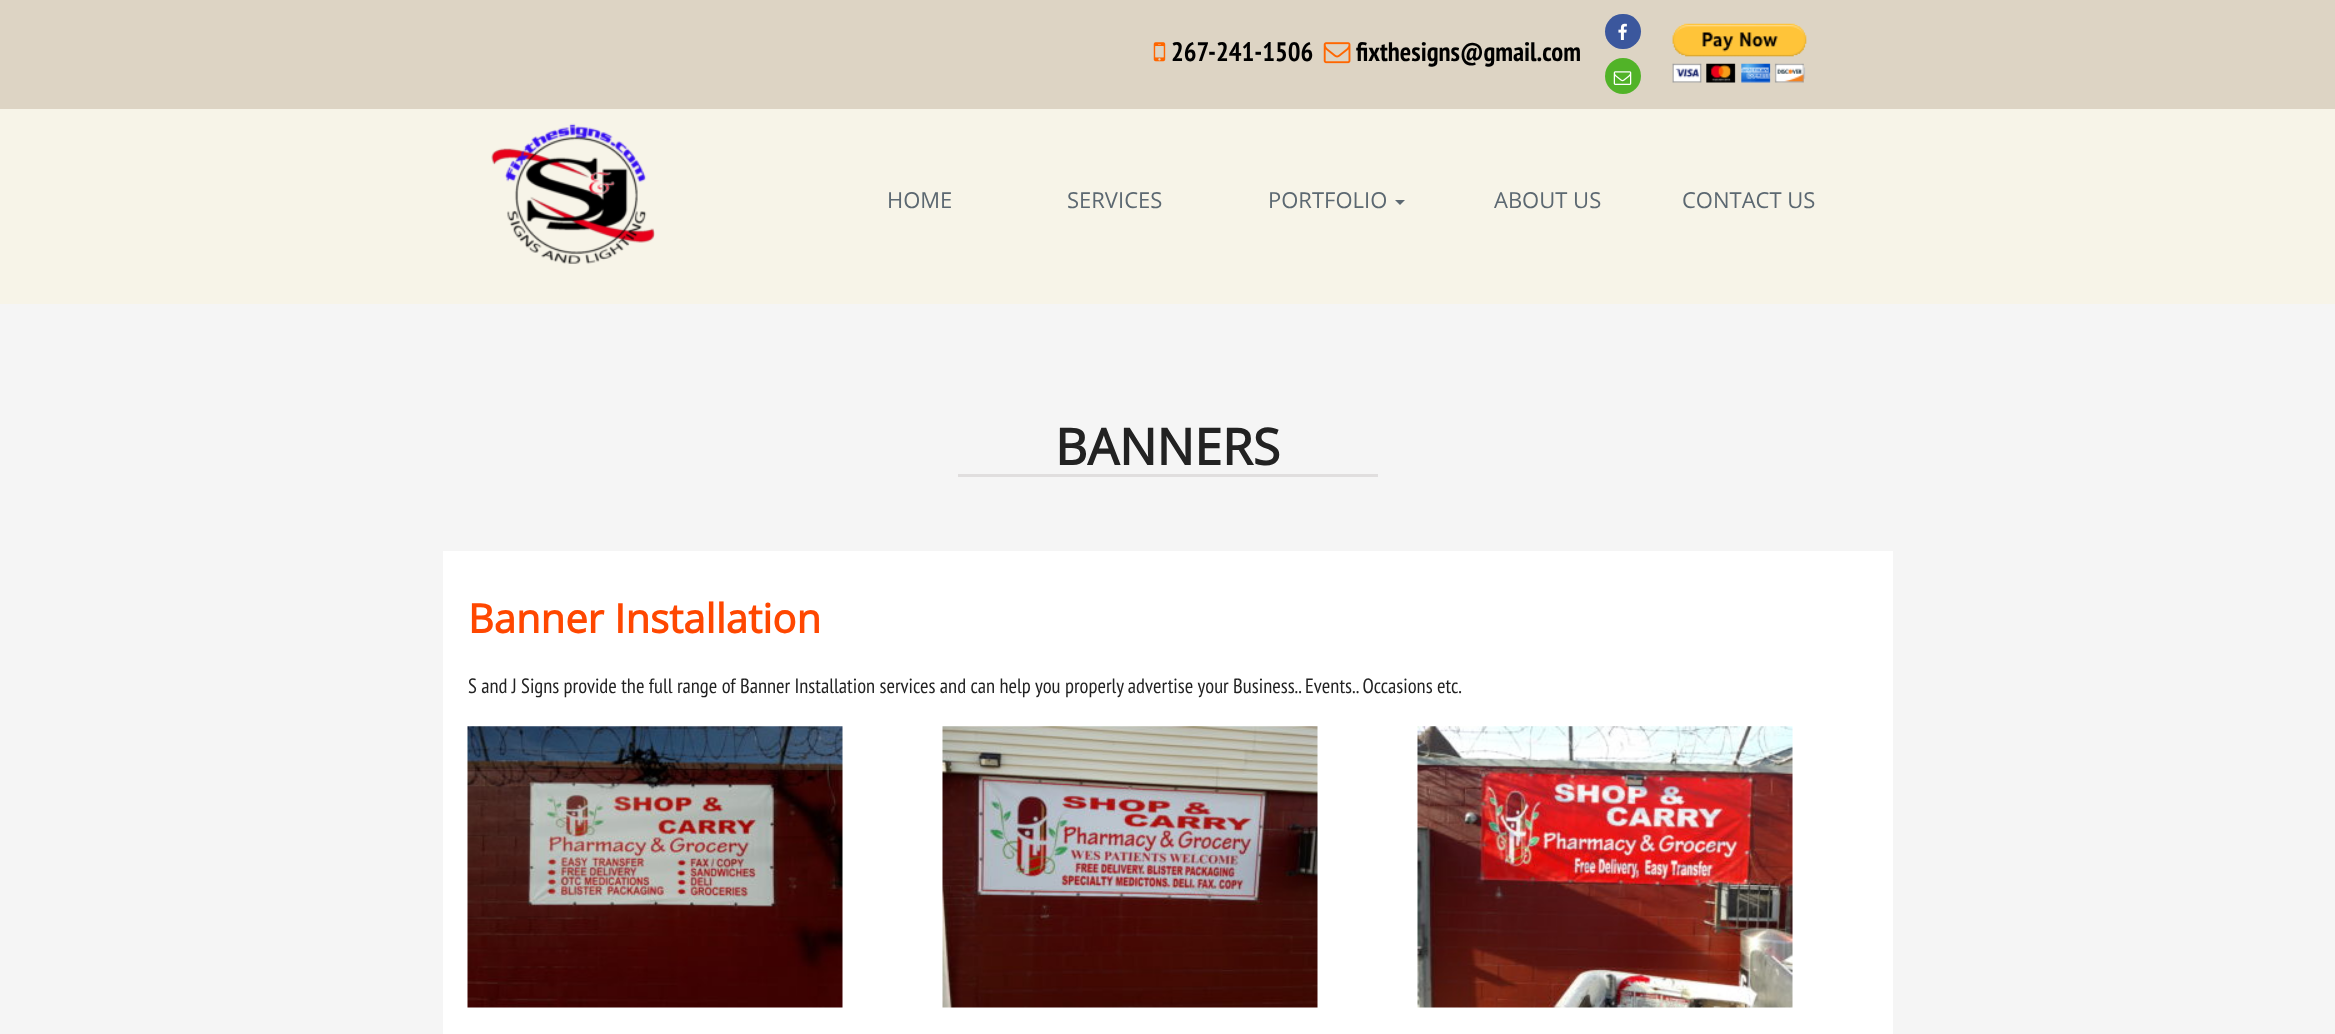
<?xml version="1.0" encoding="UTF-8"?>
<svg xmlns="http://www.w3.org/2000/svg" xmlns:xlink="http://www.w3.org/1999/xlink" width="2335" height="1034">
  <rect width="100%" height="100%" fill="#f5f5f5" />
  <rect width="2335" height="109" fill="#ddd4c4" />
  <image x="1153" y="42" width="13" height="20" xlink:href="image1.png" />
  <image x="1323" y="42" width="28" height="22" xlink:href="image2.png" />
  <rect x="1605" y="14" width="36" height="35" rx="17.5" fill="#3b579d" />
  <image x="1618" y="23" width="9" height="17" xlink:href="image3.png" />
  <circle cx="1623" cy="76" r="18" fill="#51b328" />
  <image x="1613" y="71" width="19" height="14" xlink:href="image4.png" />
  <image x="1672" y="23" width="135" height="60" xlink:href="image5.png" />
  <rect y="109" width="2335" height="195" fill="#f7f4e8" />
  <image x="491" y="123" width="164" height="141" xlink:href="image6.png" />
  <path d="M 1395 200 h 10 l -5 5 z" fill="#5c6871" />
  <rect x="958" y="474" width="420" height="3" fill="#e0dede" />
  <rect x="443" y="551" width="1450" height="483" fill="#ffffff" />
  <image x="467" y="726" width="376" height="282" xlink:href="image7.png" />
  <image x="942" y="726" width="376" height="282" xlink:href="image8.png" />
  <image x="1417" y="726" width="376" height="282" xlink:href="image9.png" />
  <text x="1171" y="61" style="font-family: PT Sans Narrow; font-size: 26.75px; font-weight: bold; fill: #000000">267-241-1506</text>
  <text x="1356" y="61" style="font-family: PT Sans Narrow; font-size: 26.75px; font-weight: bold; fill: #000000">fixthesigns@gmail.com</text>
  <text x="887" y="208" style="font-family: Open Sans; font-size: 22px; fill: #5c6871">HOME</text>
  <text x="1067" y="208" style="font-family: Open Sans; font-size: 22px; fill: #5c6871">SERVICES</text>
  <text x="1268" y="208" style="font-family: Open Sans; font-size: 22px; fill: #5c6871">PORTFOLIO</text>
  <text x="1494" y="208" style="font-family: Open Sans; font-size: 22px; fill: #5c6871">ABOUT US</text>
  <text x="1682" y="208" style="font-family: Open Sans; font-size: 22px; fill: #5c6871">CONTACT US</text>
  <text x="1055" y="465" style="font-family: Open Sans; font-size: 50px; font-weight: bold; fill: #222222">BANNERS</text>
  <text x="468" y="633" style="font-family: Open Sans; font-size: 40px; font-weight: bold; fill: #ff4700">Banner Installation</text>
  <text x="468" y="693" style="font-family: PT Sans Narrow; font-size: 20.6px; fill: #222222">S and J Signs provide the full range of Banner Installation services and can help you properly advertise your Business.. Events.. Occasions etc.</text>
</svg>
